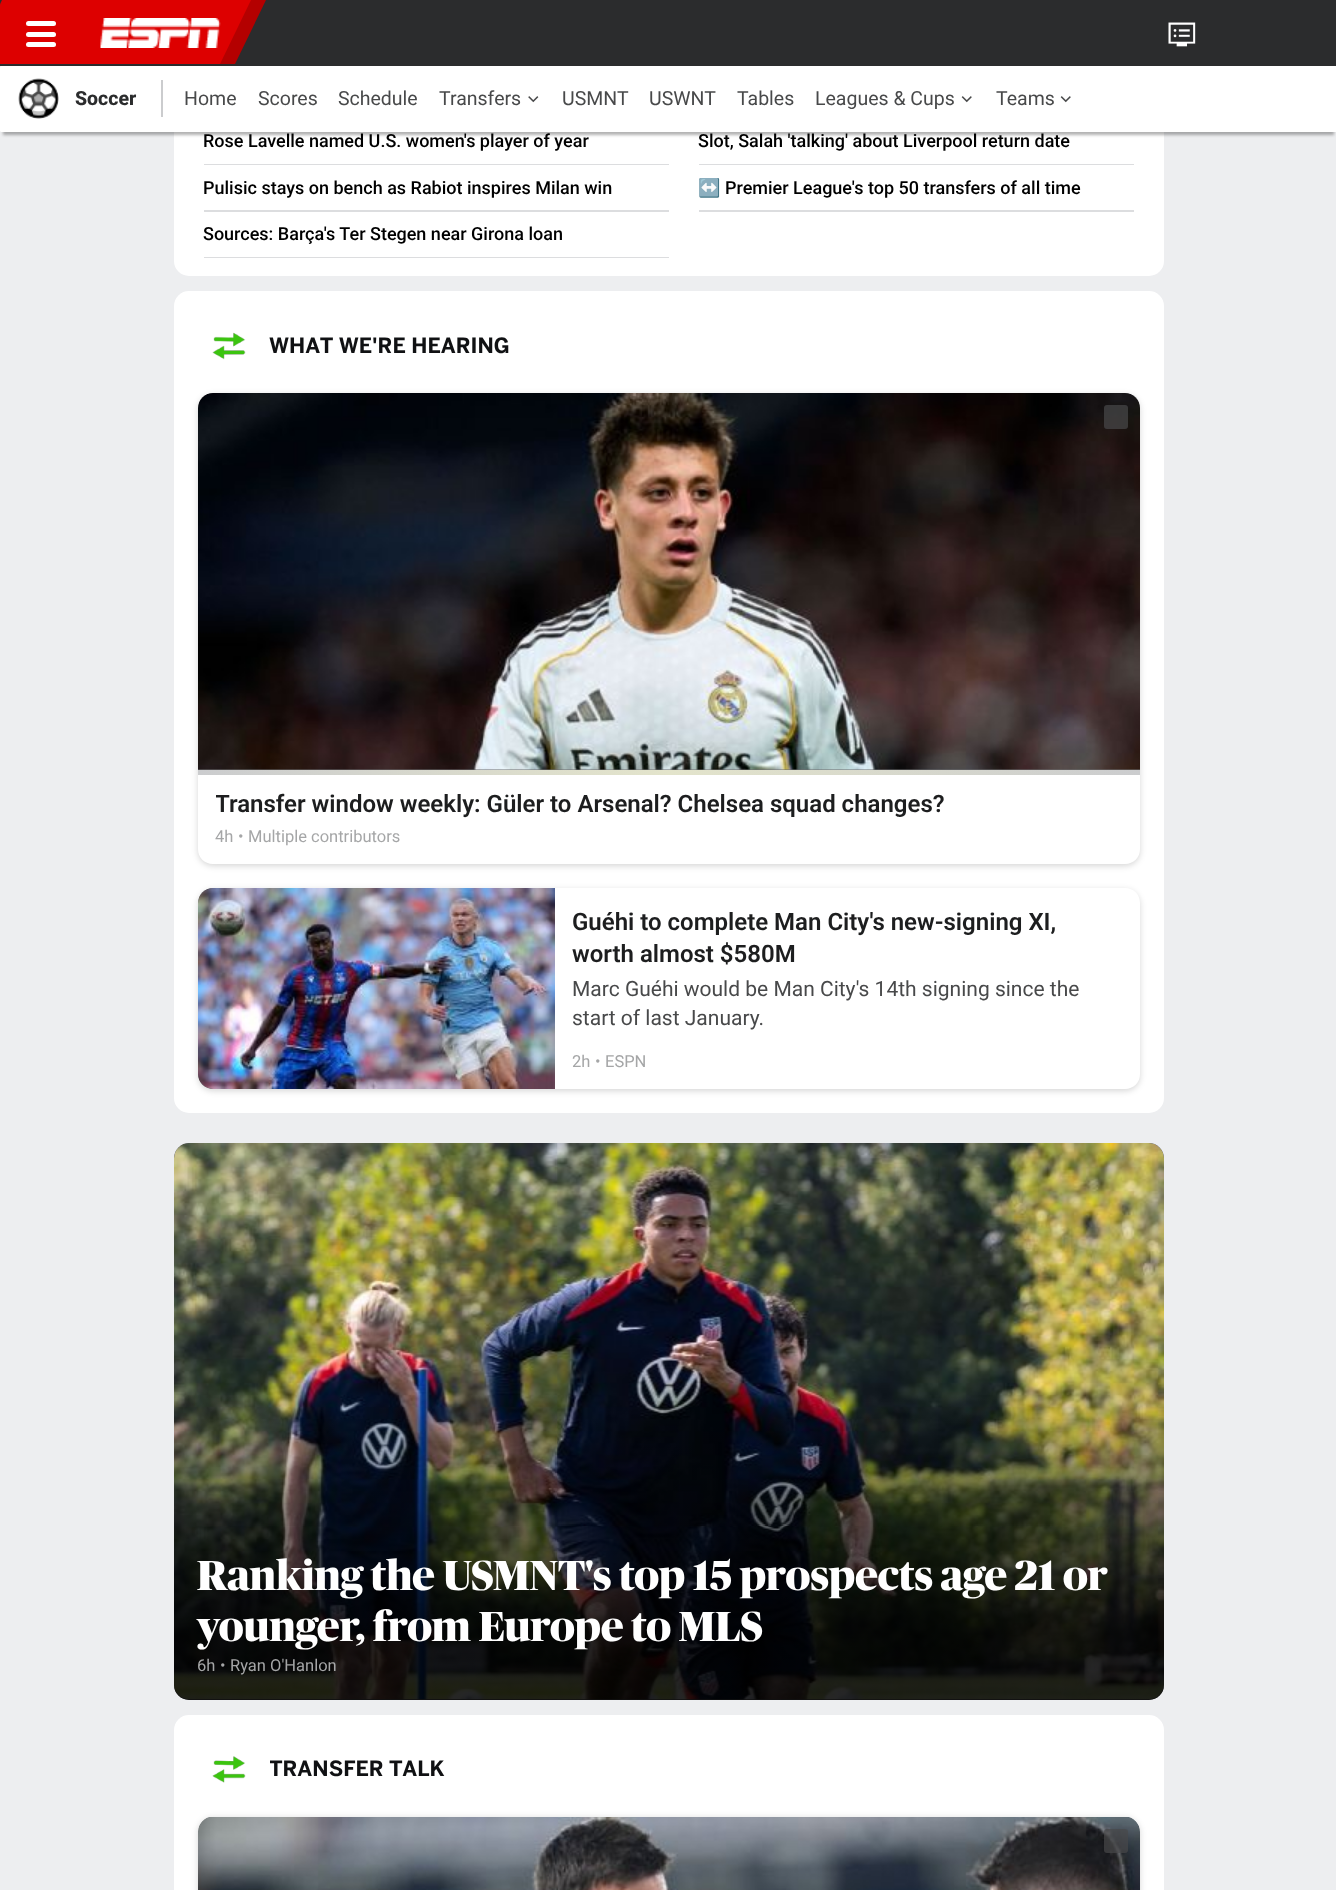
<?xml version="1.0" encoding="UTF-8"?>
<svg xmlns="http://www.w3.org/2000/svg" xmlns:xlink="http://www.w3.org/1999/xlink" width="1336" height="1890">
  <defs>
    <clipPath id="clip1"><path d="M 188 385 h 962 v 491 h -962 z m 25 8 h 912 c 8.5 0 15 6.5 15 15 v 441 c 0 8.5 -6.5 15 -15 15 h -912 c -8.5 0 -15 -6.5 -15 -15 v -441 c 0 -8.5 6.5 -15 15 -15 z" clip-rule="evenodd" /></clipPath>
    <linearGradient id="g1" gradientUnits="userSpaceOnUse" x1="198" y1="772" x2="1140" y2="772"><stop offset="0" stop-color="#cbccce" /><stop offset="0.5" stop-color="#e3e4cb" /><stop offset="1" stop-color="#cbccce" /></linearGradient>
    <clipPath id="clip2"><path d="M 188 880 h 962 v 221 h -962 z m 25 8 h 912 c 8.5 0 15 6.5 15 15 v 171 c 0 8.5 -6.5 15 -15 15 h -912 c -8.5 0 -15 -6.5 -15 -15 v -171 c 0 -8.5 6.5 -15 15 -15 z" clip-rule="evenodd" /></clipPath>
    <linearGradient id="g2" gradientUnits="userSpaceOnUse" x1="669" y1="1700" x2="669" y2="1143"><stop offset="0" stop-color="#000000" stop-opacity="0.85" /><stop offset="0.12" stop-color="#000000" stop-opacity="0.85" /><stop offset="0.5" stop-color="#000000" stop-opacity="0.1" /><stop offset="0.55" stop-color="#000000" stop-opacity="0" /><stop offset="1" stop-color="#ffffff" stop-opacity="0" /></linearGradient>
    <clipPath id="clip3"><rect x="699" y="165" width="435" height="45" /></clipPath>
    <clipPath id="clip4"><rect x="216" y="788" width="900" height="31" /></clipPath>
    <clipPath id="clip5"><rect x="270" y="1755" width="176" height="27" /></clipPath>
  </defs>
  <rect width="100%" height="100%" fill="#edeef0" />
  <rect x="174" y="8" width="990" height="268" rx="15" fill="#ffffff" />
  <rect width="1336" height="66" fill="#2b2c2d" />
  <path d="M 81 0 h 185 l -31 64 h -184 z" fill="#b40000" />
  <path d="M 2 0 h 249 l -31 64 h -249 z" fill="#dd0000" />
  <image x="100" y="18" width="121" height="30" xlink:href="image1.png" />
  <rect x="26" y="32" width="30" height="5" rx="2.5" fill="#ffffff" />
  <rect x="26" y="21" width="30" height="5" rx="2.5" fill="#ffffff" />
  <rect x="26" y="42" width="30" height="5" rx="2.5" fill="#ffffff" />
  <image x="1168" y="22" width="28" height="25" xlink:href="image2.png" />
  <rect x="3" y="75" width="1331" height="60" fill="#000000" fill-opacity="0.3" filter="blur(1.5px)" />
  <rect y="66" width="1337" height="66" rx="1.5" fill="#ffffff" />
  <image x="18" y="78" width="41" height="41" xlink:href="image3.png" />
  <rect x="161" y="80" width="2" height="37" fill="#cbccce" />
  <image x="528" y="96" width="11" height="7" xlink:href="image4.png" />
  <image x="961" y="96" width="11" height="7" xlink:href="image5.png" />
  <image x="1060" y="96" width="11" height="7" xlink:href="image5.png" />
  <rect x="204" y="164" width="465" height="1" fill="#dcdddf" />
  <rect x="204" y="210" width="465" height="2" fill="#dcdddf" />
  <rect x="204" y="257" width="465" height="1" fill="#dcdddf" />
  <rect x="699" y="164" width="435" height="1" fill="#dcdddf" />
  <rect x="699" y="210" width="435" height="2" fill="#dcdddf" />
  <rect x="174" y="291" width="990" height="822" rx="15" fill="#ffffff" />
  <image x="212" y="332" width="34" height="28" xlink:href="image6.png" />
  <g clip-path="url(#clip1)">
    <rect x="198" y="395" width="942" height="471" rx="15" fill="#000000" fill-opacity="0.16" filter="blur(3px)" />
  </g>
  <path d="M 213 393 h 912 c 8.5 0 15 6.5 15 15 v 362 h -942 v -362 c 0 -8.5 6.5 -15 15 -15 z" fill="#6c6d6f" />
  <image x="198" y="393" width="942" height="377" xlink:href="image7.png" />
  <rect x="1104" y="405" width="24" height="24" rx="3" fill="#48494a" fill-opacity="0.7" />
  <rect x="198" y="770" width="942" height="5" fill="url(#g1)" />
  <g clip-path="url(#clip2)">
    <rect x="198" y="890" width="942" height="201" rx="15" fill="#000000" fill-opacity="0.16" filter="blur(3px)" />
  </g>
  <path d="M 213 888 h 342 v 201 h -342 c -8.5 0 -15 -6.5 -15 -15 v -171 c 0 -8.5 6.5 -15 15 -15 z" fill="#6c6d6f" />
  <image x="198" y="888" width="357" height="201" xlink:href="image8.png" />
  <rect x="174" y="1143" width="990" height="557" rx="15" fill="#6c6d6f" />
  <image x="174" y="1143" width="990" height="557" xlink:href="image9.png" />
  <rect x="174" y="1143" width="990" height="557" rx="15" fill="url(#g2)" />
  <rect x="174" y="1715" width="990" height="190" rx="15" fill="#ffffff" />
  <image x="212" y="1756" width="34" height="27" xlink:href="image10.png" />
  <rect x="198" y="1818" width="942" height="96" rx="15" fill="#000000" fill-opacity="0.16" filter="blur(3px)" />
  <image x="198" y="1817" width="942" height="73" xlink:href="image11.png" />
  <rect x="1104" y="1829" width="24" height="24" rx="3" fill="#48494a" fill-opacity="0.7" />
  <text x="75" y="105" style="font-family: Roboto; font-size: 19.5px; font-weight: 800; fill: #2b2c2d">Soccer</text>
  <text x="184" y="105" style="font-family: Roboto; font-size: 19.5px; fill: #48494a">Home</text>
  <text x="258" y="105" style="font-family: Roboto; font-size: 19.5px; fill: #48494a">Scores</text>
  <text x="338" y="105" style="font-family: Roboto; font-size: 19.5px; fill: #48494a">Schedule</text>
  <text x="439" y="105" style="font-family: Roboto; font-size: 19.5px; fill: #48494a">Transfers</text>
  <text x="562" y="105" style="font-family: Roboto; font-size: 19.5px; fill: #48494a">USMNT</text>
  <text x="649" y="105" style="font-family: Roboto; font-size: 19.5px; fill: #48494a">USWNT</text>
  <text x="737" y="105" style="font-family: Roboto; font-size: 19.5px; fill: #48494a">Tables</text>
  <text x="815" y="105" style="font-family: Roboto; font-size: 19.5px; fill: #48494a">Leagues &amp; Cups</text>
  <text x="996" y="105" style="font-family: Roboto; font-size: 19.5px; fill: #48494a">Teams</text>
  <text x="203" y="147" style="font-family: Roboto; font-size: 18px; font-weight: 500; fill: #000000">Rose Lavelle named U.S. women's player of year</text>
  <text x="203" y="194" style="font-family: Roboto; font-size: 18px; font-weight: 500; fill: #000000">Pulisic stays on bench as Rabiot inspires Milan win</text>
  <text x="203" y="240" style="font-family: Roboto; font-size: 18px; font-weight: 500; fill: #000000">Sources: Barça's Ter Stegen near Girona loan</text>
  <text x="698" y="147" style="font-family: Roboto; font-size: 18px; font-weight: 500; fill: #000000">Slot, Salah 'talking' about Liverpool return date</text>
  <g clip-path="url(#clip3)">
    <text x="698" y="194" style="font-family: Noto Color Emoji; font-size: 18px; fill: #000000">↔️</text>
  </g>
  <text x="725" y="194" style="font-family: Roboto; font-size: 18px; font-weight: 500; fill: #000000">Premier League's top 50 transfers of all time</text>
  <text x="269" y="353" style="font-family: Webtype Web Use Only; font-size: 21px; font-weight: bold; fill: #101113">WHAT WE'RE HEARING</text>
  <g clip-path="url(#clip4)">
    <text x="215" y="812" style="font-family: Roboto; font-size: 24px; font-weight: 600; fill: #1d1e1f">Transfer window weekly: Güler to Arsenal? Chelsea squad changes?</text>
  </g>
  <text x="215" y="842" style="font-family: Roboto; font-size: 16.5px; fill: #a5a6a7">4h</text>
  <text x="238" y="842" style="font-family: Roboto; font-size: 16.5px; fill: #a5a6a7">•</text>
  <text x="248" y="842" style="font-family: Roboto; font-size: 16.5px; fill: #a5a6a7">Multiple contributors</text>
  <text x="572" y="930" style="font-family: Roboto; font-size: 24px; font-weight: 600; fill: #1d1e1f">Guéhi to complete Man City's new-signing XI,</text>
  <text x="572" y="962" style="font-family: Roboto; font-size: 24px; font-weight: 600; fill: #1d1e1f">worth almost $580M</text>
  <text x="572" y="996" style="font-family: Roboto; font-size: 21px; fill: #48494a">Marc Guéhi would be Man City's 14th signing since the</text>
  <text x="572" y="1025" style="font-family: Roboto; font-size: 21px; fill: #48494a">start of last January.</text>
  <text x="572" y="1067" style="font-family: Roboto; font-size: 16.5px; fill: #a5a6a7">2h</text>
  <text x="595" y="1067" style="font-family: Roboto; font-size: 16.5px; fill: #a5a6a7">•</text>
  <text x="605" y="1067" style="font-family: Roboto; font-size: 16.5px; fill: #a5a6a7">ESPN</text>
  <text x="197" y="1590" style="font-family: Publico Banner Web; font-size: 42px; font-weight: bold; fill: #ffffff">Ranking the USMNT's top 15 prospects age 21 or</text>
  <text x="197" y="1641" style="font-family: Publico Banner Web; font-size: 42px; font-weight: bold; fill: #ffffff">younger, from Europe to MLS</text>
  <text x="197" y="1671" style="font-family: Roboto; font-size: 16.5px; fill: #a5a6a7">6h</text>
  <text x="220" y="1671" style="font-family: Roboto; font-size: 16.5px; fill: #a5a6a7">•</text>
  <text x="230" y="1671" style="font-family: Roboto; font-size: 16.5px; fill: #a5a6a7">Ryan O'Hanlon</text>
  <g clip-path="url(#clip5)">
    <text x="269" y="1776" style="font-family: Webtype Web Use Only; font-size: 21px; font-weight: bold; fill: #101113">TRANSFER TALK</text>
  </g>
</svg>
